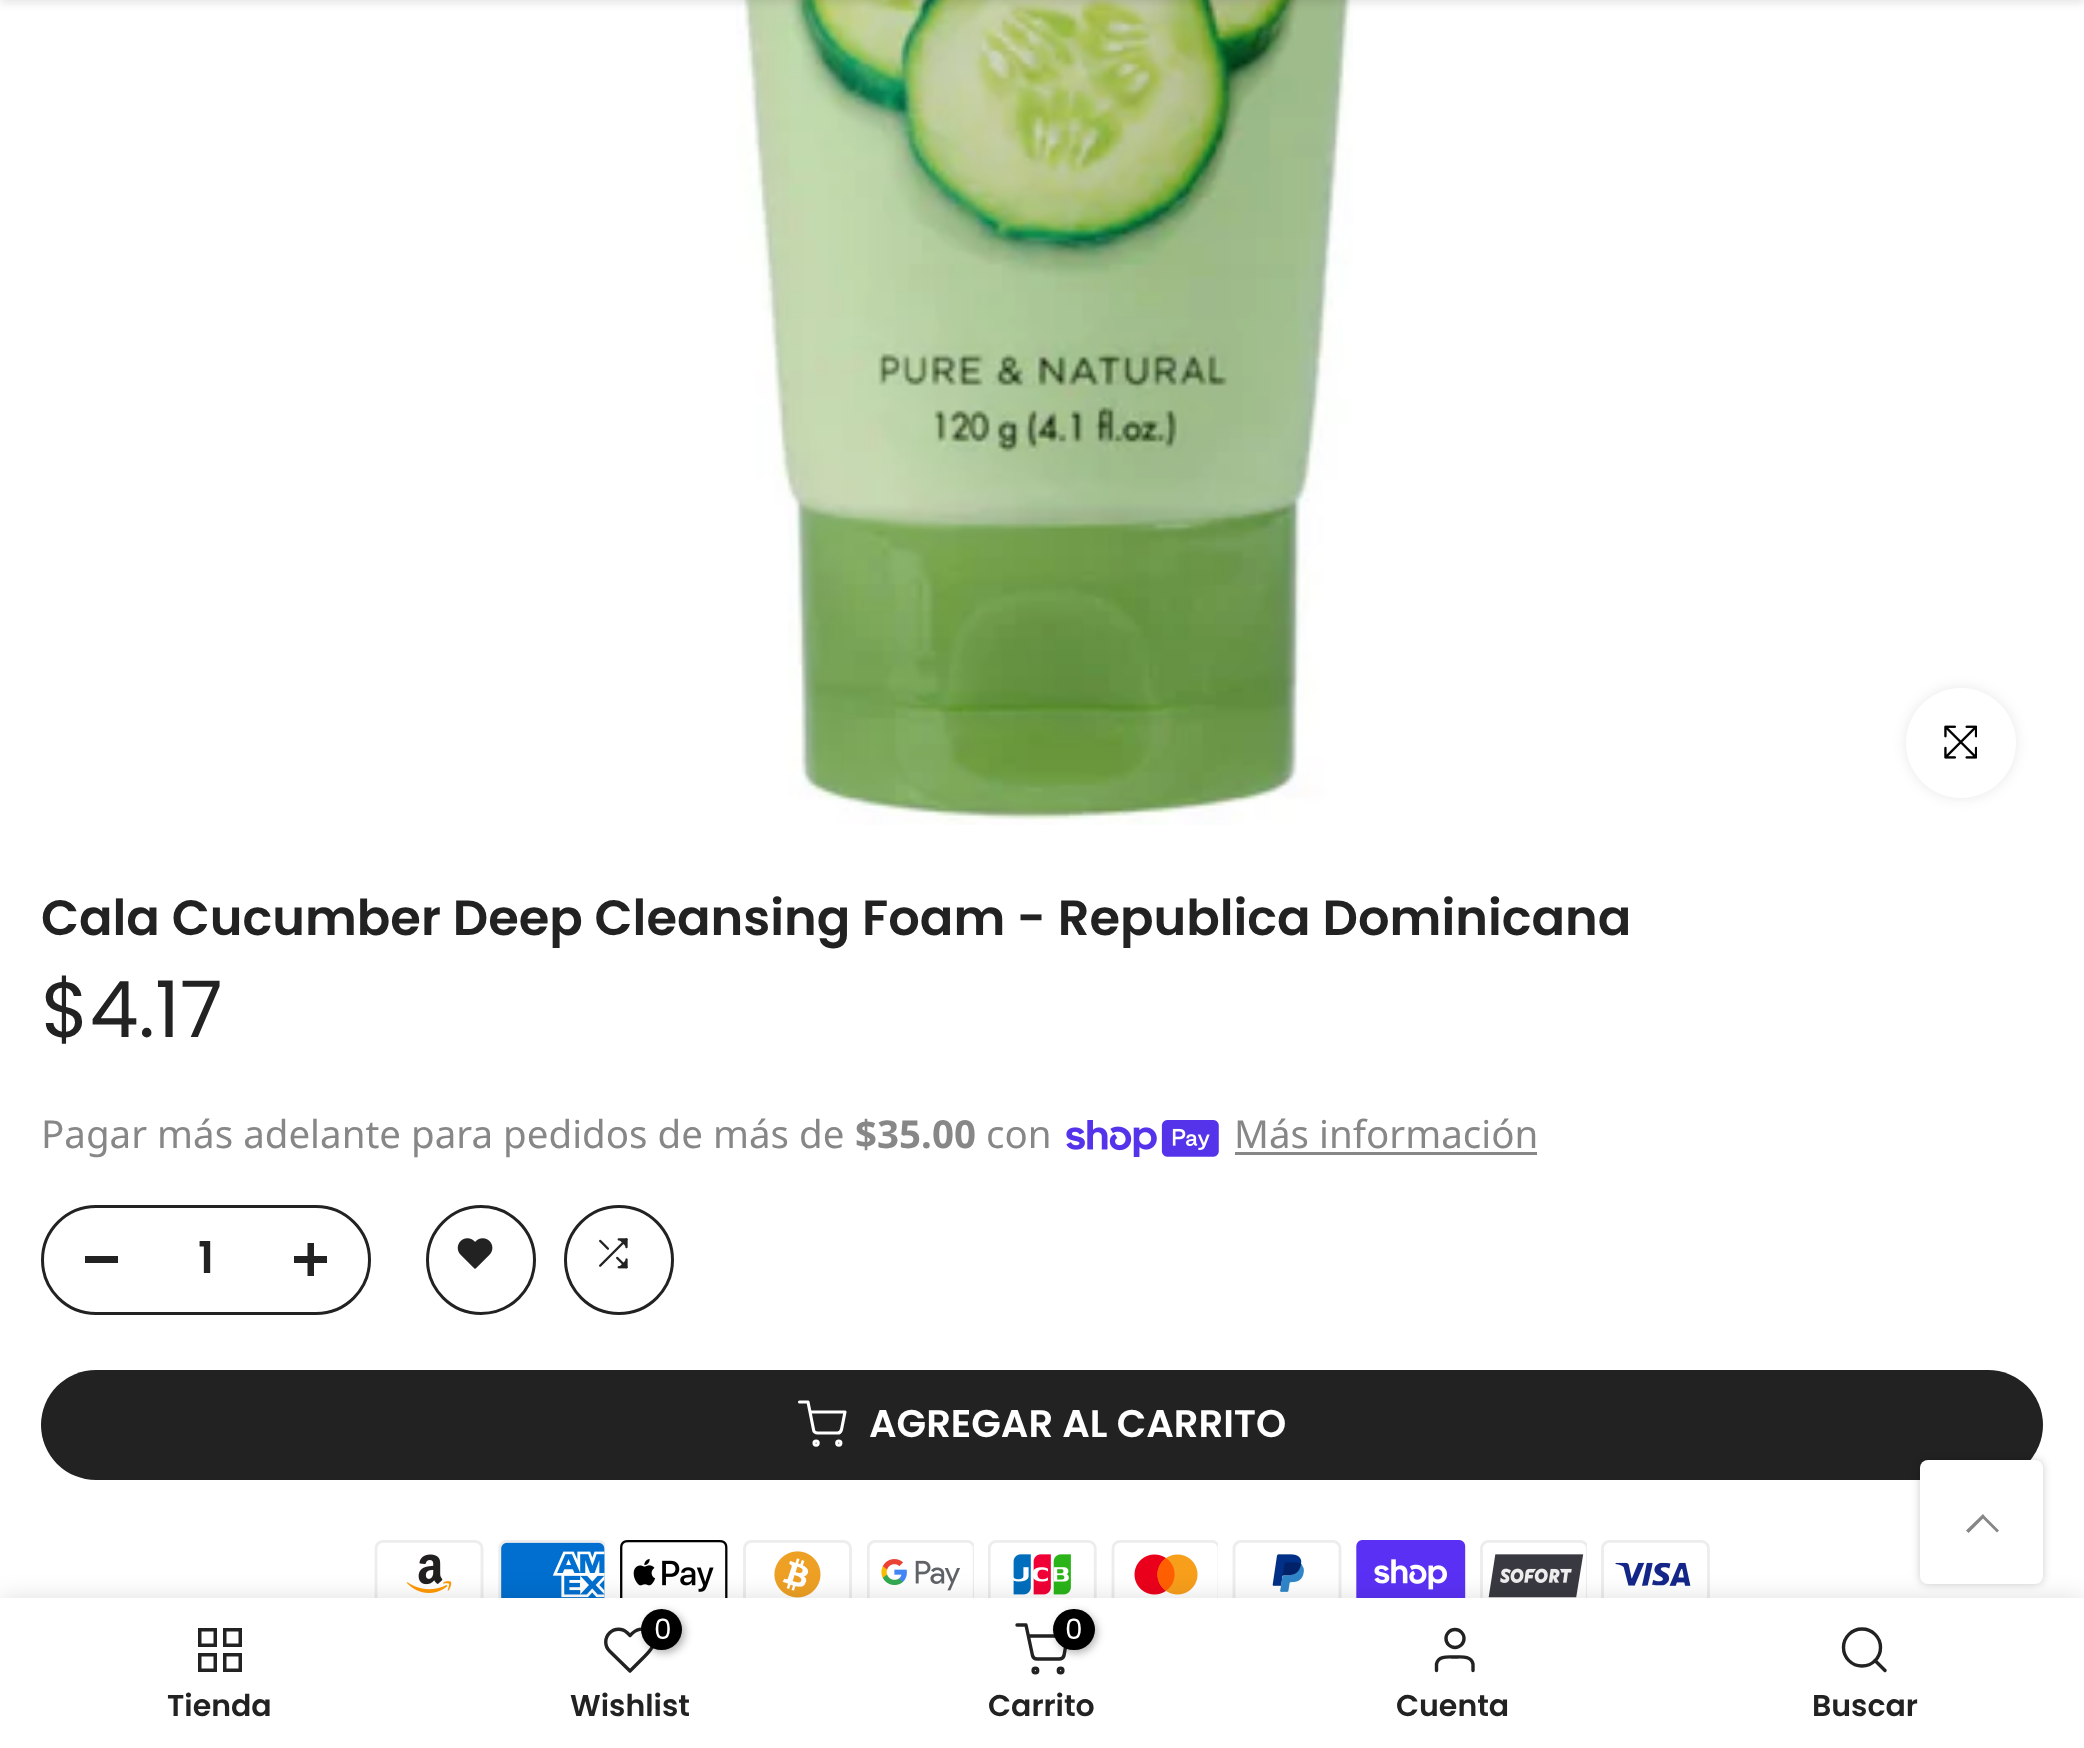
<?xml version="1.0" encoding="UTF-8"?>
<svg xmlns="http://www.w3.org/2000/svg" xmlns:xlink="http://www.w3.org/1999/xlink" width="2084" height="1748">
  <rect width="100%" height="100%" fill="#ffffff" />
  <image x="736" y="0" width="617" height="825" xlink:href="image1.png" />
  <rect y="-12" width="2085" height="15" fill="#000000" fill-opacity="0.1" filter="blur(4px)" />
  <rect x="1906" y="688" width="110" height="110" rx="55" fill="#000000" fill-opacity="0.09" filter="blur(7px)" />
  <circle cx="1961" cy="743" r="55" fill="#ffffff" />
  <image x="1944" y="725" width="33" height="34" xlink:href="image2.png" />
  <image x="1066" y="1120" width="153" height="37" xlink:href="image3.png" />
  <rect x="1235" y="1152" width="302" height="3" fill="#878787" />
  <rect x="42.5" y="1206.5" width="327" height="107" rx="53.5" fill="none" stroke="#222222" stroke-width="3" />
  <rect x="85" y="1256" width="33" height="7" fill="#222222" />
  <path d="M 314 1256 h 13 v 7 h -13 v 13 h -6.5 v -13 h -13.5 v -7 h 13.5 v -13 h 6.5 z" fill="#222222" fill-rule="evenodd" />
  <circle cx="481" cy="1260" r="53.5" fill="none" stroke="#222222" stroke-width="3" />
  <image x="457" y="1238" width="36" height="31" xlink:href="image4.png" />
  <circle cx="619" cy="1260" r="53.5" fill="none" stroke="#222222" stroke-width="3" />
  <image x="599" y="1238" width="29" height="31" xlink:href="image5.png" />
  <rect x="41" y="1370" width="2002" height="110" rx="55" fill="#222222" />
  <circle cx="816.1" cy="1443.1" r="2.1" fill="none" stroke="#ffffff" stroke-width="3.1" />
  <circle cx="838.8" cy="1443.1" r="2.1" fill="none" stroke="#ffffff" stroke-width="3.1" />
  <path d="M 799.5 1402 h 8.5 l 5.5 27.5 c 0 2 2 3.5 4 3.5 h 20 c 2 0 3.5 -1.5 4 -3.5 l 3.5 -17.5 h -35" fill="none" stroke="#ffffff" stroke-width="3.1" stroke-linecap="round" stroke-linejoin="round" />
  <image x="374" y="1540" width="110" height="58" xlink:href="image6.png" />
  <image x="498" y="1540" width="107" height="58" xlink:href="image7.png" />
  <image x="620" y="1540" width="108" height="58" xlink:href="image8.png" />
  <image x="743" y="1540" width="109" height="58" xlink:href="image9.png" />
  <image x="867" y="1540" width="107" height="58" xlink:href="image10.png" />
  <image x="988" y="1540" width="109" height="58" xlink:href="image11.png" />
  <image x="1111" y="1540" width="107" height="58" xlink:href="image12.png" />
  <image x="1232" y="1540" width="110" height="58" xlink:href="image13.png" />
  <image x="1356" y="1540" width="110" height="58" xlink:href="image14.png" />
  <image x="1480" y="1540" width="107" height="58" xlink:href="image15.png" />
  <image x="1601" y="1540" width="109" height="58" xlink:href="image16.png" />
  <rect x="1920" y="1460" width="123" height="124" rx="8" fill="#000000" fill-opacity="0.2" filter="blur(4px)" />
  <rect y="1598" width="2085" height="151" fill="#000000" fill-opacity="0.12" filter="blur(12.5px)" />
  <rect x="1920" y="1460" width="123" height="124" rx="8" fill="#ffffff" />
  <path d="M 1985 1516.5 l -2 -2.5 l -17 16.5 l 2.5 2.5 l 14.5 -14.5 l 14 14 l 2 -2 l -8 -8 z" fill="#878787" />
  <rect y="1598" width="2084" height="150" fill="#ffffff" />
  <rect x="199.75" y="1629.75" width="15.5" height="15.5" fill="none" stroke="#222222" stroke-width="3.5" />
  <rect x="224.75" y="1629.75" width="15.5" height="15.5" fill="none" stroke="#222222" stroke-width="3.5" />
  <rect x="199.75" y="1654.75" width="15.5" height="15.5" fill="none" stroke="#222222" stroke-width="3.5" />
  <rect x="224.75" y="1654.75" width="15.5" height="15.5" fill="none" stroke="#222222" stroke-width="3.5" />
  <path d="M 650 1633 c -7 -7 -14.5 -3.5 -20 2.5 l -2.5 -2.5 c -5 -5 -13 -5 -18 0 c -5 5 -5 13 0 18 l 20.5 20 l 11.5 -11.5 c 7 -7 18.5 -16.5 8.5 -26.5 z" fill="none" stroke="#222222" stroke-width="3.4" stroke-linecap="round" stroke-linejoin="round" />
  <rect x="644" y="1612" width="41" height="41" rx="20.5" fill="#000000" fill-opacity="0.3" filter="blur(4px)" />
  <circle cx="661.5" cy="1629.5" r="20.5" fill="#000000" />
  <path d="M 1017 1625 h 9 l 6.5 30.5 c 0.5 2 2 3.5 4.5 3.5 h 22 c 2.5 0 4.5 -1.5 5 -3.5 l 3.5 -19.5 h -39" fill="none" stroke="#222222" stroke-width="3.4" stroke-linecap="round" stroke-linejoin="round" />
  <rect x="1056" y="1612" width="41" height="41" rx="20.5" fill="#000000" fill-opacity="0.3" filter="blur(4px)" />
  <rect x="1053" y="1609" width="42" height="41" rx="20.5" fill="#000000" />
  <circle cx="1035.4" cy="1670.6" r="2.3" fill="none" stroke="#222222" stroke-width="3.4" />
  <circle cx="1060.6" cy="1670.6" r="2.3" fill="none" stroke="#222222" stroke-width="3.4" />
  <circle cx="1455" cy="1638.5" r="9" fill="none" stroke="#222222" stroke-width="3.4" />
  <path d="M 1473 1670.5 v -6.5 c -2 -8.5 -11.5 -7 -18 -7 c -7 0 -16.5 -1.5 -18.5 7 v 6.5" fill="none" stroke="#222222" stroke-width="3.4" stroke-linecap="round" stroke-linejoin="round" />
  <circle cx="1862" cy="1647.5" r="18.5" fill="none" stroke="#222222" stroke-width="3.4" />
  <path d="M 1885 1670.5 l -10 -10" fill="none" stroke="#222222" stroke-width="3.4" stroke-linecap="round" stroke-linejoin="round" />
  <text x="41" y="935" style="font-family: Poppins; font-size: 49.5px; font-weight: 600; fill: #222222">Cala Cucumber Deep Cleansing Foam - Republica Dominicana</text>
  <text x="41" y="1037" style="font-family: Poppins; font-size: 78px; fill: #222222">$4.17</text>
  <text x="41" y="1148" style="font-family: Noto Sans; font-size: 38.5px; fill: #878787">Pagar más adelante para pedidos de más de</text>
  <text x="855" y="1148" style="font-family: Noto Sans; font-size: 38.5px; font-weight: bold; fill: #878787">$35.00</text>
  <text x="986" y="1148" style="font-family: Noto Sans; font-size: 38.5px; fill: #878787">con</text>
  <text x="1234" y="1148" style="font-family: Noto Sans; font-size: 38.5px; fill: #878787">Más información</text>
  <text x="198" y="1273" style="font-family: Poppins; font-size: 44px; font-weight: 600; fill: #222222">1</text>
  <text x="869" y="1437" style="font-family: Poppins; font-size: 38.5px; font-weight: 600; fill: #ffffff">AGREGAR AL CARRITO</text>
  <text x="167" y="1716" style="font-family: Poppins; font-size: 30px; font-weight: 600; fill: #222222">Tienda</text>
  <text x="654" y="1639" style="font-family: Poppins; font-size: 28px; fill: #ffffff">0</text>
  <text x="570" y="1716" style="font-family: Poppins; font-size: 30px; font-weight: 600; fill: #222222">Wishlist</text>
  <text x="1065" y="1639" style="font-family: Poppins; font-size: 28px; fill: #ffffff">0</text>
  <text x="988" y="1716" style="font-family: Poppins; font-size: 30px; font-weight: 600; fill: #222222">Carrito</text>
  <text x="1396" y="1716" style="font-family: Poppins; font-size: 30px; font-weight: 600; fill: #222222">Cuenta</text>
  <text x="1812" y="1716" style="font-family: Poppins; font-size: 30px; font-weight: 600; fill: #222222">Buscar</text>
</svg>
